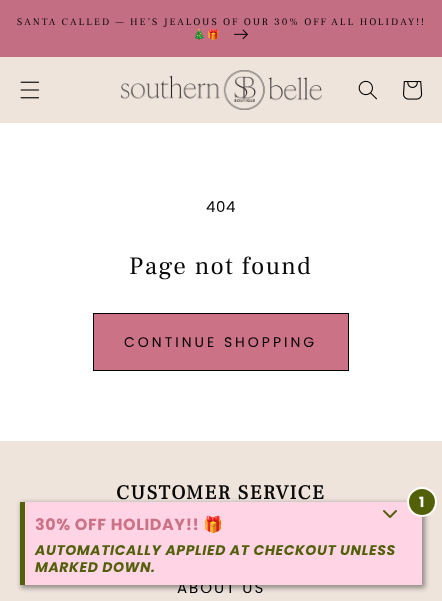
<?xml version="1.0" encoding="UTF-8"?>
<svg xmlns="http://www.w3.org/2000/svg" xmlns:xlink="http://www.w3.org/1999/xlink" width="442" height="601">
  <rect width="100%" height="100%" fill="#ffffff" />
  <rect width="442" height="57" fill="#c36e82" />
  <image x="234" y="29" width="14" height="11" xlink:href="image1.png" />
  <rect y="57" width="442" height="66" fill="#efe4dc" />
  <image x="20" y="81" width="20" height="18" xlink:href="image2.png" />
  <image x="121" y="70" width="201" height="40" xlink:href="image3.png" />
  <image x="358" y="80" width="19" height="20" xlink:href="image4.png" />
  <image x="403" y="81" width="20" height="19" xlink:href="image5.png" />
  <rect x="93.5" y="313.5" width="255" height="57" fill="#cb7287" stroke="#000000" />
  <rect y="441" width="442" height="160" fill="#efe4dc" />
  <rect x="21" y="503" width="404" height="85" fill="#000000" fill-opacity="0.4" filter="blur(2.5px)" />
  <rect x="20" y="502" width="5" height="83" fill="#52600a" />
  <text x="17" y="25" style="font-family: Frank Ruhl Libre; font-size: 10px; letter-spacing: 2px; fill: #080808">SANTA CALLED — HE’S JEALOUS OF OUR 30% OFF ALL HOLIDAY!!</text>
  <text x="193" y="38" style="font-family: Noto Color Emoji; font-size: 10px; letter-spacing: 2px; fill: #080808">🎄🎁</text>
  <text x="206" y="212" style="font-family: Poppins; font-size: 15px; letter-spacing: 0.6px; fill: #000000">404</text>
  <text x="129" y="274" style="font-family: Frank Ruhl Libre; font-size: 25px; letter-spacing: 1.5px; fill: #080808">Page not found</text>
  <text x="124" y="347" style="font-family: Poppins; font-size: 14px; letter-spacing: 3px; fill: #000000">CONTINUE SHOPPING</text>
  <text x="116" y="499" style="font-family: Frank Ruhl Libre; font-size: 20px; font-weight: bold; letter-spacing: 1.5px; fill: #080808">CUSTOMER SERVICE</text>
  <text x="177" y="593" style="font-family: Poppins; font-size: 15px; letter-spacing: 2px; fill: #000000">ABOUT US</text>
  <rect x="25" y="502" width="397" height="83" fill="#ffd4e5" />
  <circle cx="422" cy="502" r="14" fill="#52600a" stroke="#ffffff" stroke-width="2" />
  <text x="419" y="507" style="font-family: Poppins; font-size: 14px; font-weight: bold; letter-spacing: 0.6px; fill: #ffffff">1</text>
  <image x="383" y="510" width="14" height="8" xlink:href="image6.png" />
  <text x="35" y="530" style="font-family: Poppins; font-size: 16px; font-weight: bold; letter-spacing: 0.6px; fill: #cb7287">30% OFF HOLIDAY!!</text>
  <text x="203" y="530" style="font-family: Noto Color Emoji; font-size: 16px; font-weight: bold; letter-spacing: 0.6px; fill: #cb7287">🎁</text>
  <text x="35" y="555" style="font-family: Poppins; font-size: 14px; font-weight: bold; font-style: italic; letter-spacing: 0.6px; fill: #52600a">AUTOMATICALLY APPLIED AT CHECKOUT UNLESS</text>
  <text x="35" y="572" style="font-family: Poppins; font-size: 14px; font-weight: bold; font-style: italic; letter-spacing: 0.6px; fill: #52600a">MARKED DOWN.</text>
</svg>
